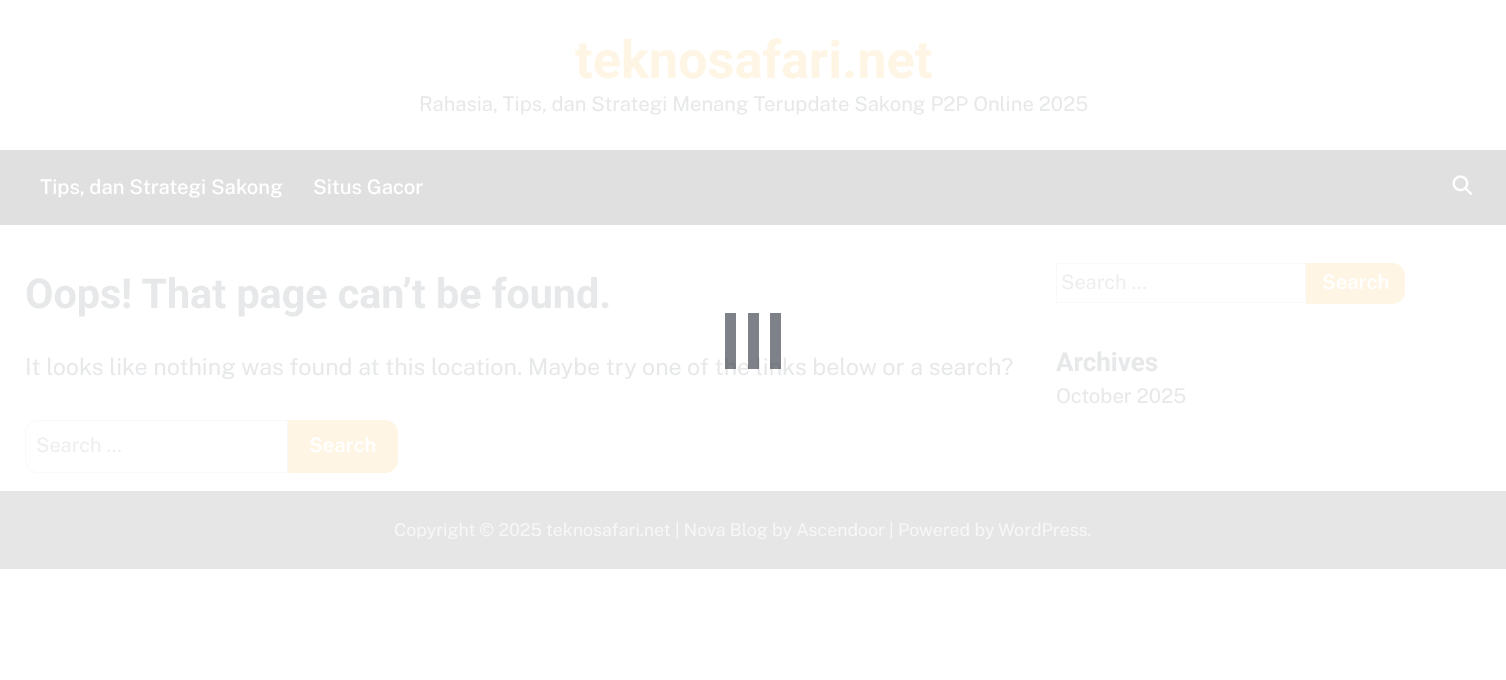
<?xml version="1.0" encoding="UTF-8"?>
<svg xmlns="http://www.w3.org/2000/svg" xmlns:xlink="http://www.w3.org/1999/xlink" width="1506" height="680">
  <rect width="100%" height="100%" fill="#ffffff" />
  <rect y="150" width="1506" height="75" fill="#e0e0e0" />
  <image x="1452" y="175" width="21" height="20" xlink:href="image1.png" />
  <path d="M 38 420.5 h 249.5 v 52 h -249.5 c -7 0 -12.5 -5.5 -12.5 -12.5 v -27 c 0 -7 5.5 -12.5 12.5 -12.5 z" fill="none" stroke="#f9f9f9" />
  <path d="M 288.5 420.5 h 96.5 c 7 0 12.5 5.5 12.5 12.5 v 27 c 0 7 -5.5 12.5 -12.5 12.5 h -96.5 z" fill="#fff5e4" stroke="#fff5e4" />
  <rect x="1056.5" y="263.5" width="249" height="39" fill="none" stroke="#f9f9f9" />
  <path d="M 1306.5 263.5 h 85.5 c 7 0 12.5 5.5 12.5 12.5 v 15 c 0 7 -5.5 12.5 -12.5 12.5 h -85.5 z" fill="#fff5e4" stroke="#fff5e4" />
  <rect y="491" width="1506" height="78" fill="#e6e6e6" />
  <text x="575" y="78" style="font-family: Roboto; font-size: 52.25px; font-weight: bold; fill: #fff5e4">teknosafari.net</text>
  <text x="419" y="111" style="font-family: Public Sans; font-size: 20.25px; fill: #e7e8e9">Rahasia, Tips, dan Strategi Menang Terupdate Sakong P2P Online 2025</text>
  <text x="40" y="194" style="font-family: Public Sans; font-size: 20.25px; font-weight: 500; fill: #ffffff">Tips, dan Strategi Sakong</text>
  <text x="313" y="194" style="font-family: Public Sans; font-size: 20.25px; font-weight: 500; fill: #ffffff">Situs Gacor</text>
  <text x="25" y="308" style="font-family: Roboto; font-size: 41.25px; font-weight: bold; fill: #e7e8e9">Oops! That page can’t be found.</text>
  <text x="25" y="375" style="font-family: Public Sans; font-size: 23.3px; fill: #e7e8e9">It looks like nothing was found at this location. Maybe try one of the links below or a search?</text>
  <text x="36" y="452" style="font-family: Public Sans; font-size: 20px; fill: #eeeeee">Search …</text>
  <text x="309" y="452" style="font-family: Public Sans; font-size: 20.25px; font-weight: 600; fill: #ffffff">Search</text>
  <text x="1061" y="289" style="font-family: Public Sans; font-size: 20px; fill: #eeeeee">Search …</text>
  <text x="1322" y="289" style="font-family: Public Sans; font-size: 20.25px; font-weight: 600; fill: #ffffff">Search</text>
  <text x="1056" y="371" style="font-family: Roboto; font-size: 26px; font-weight: bold; fill: #e7e8e9">Archives</text>
  <text x="1056" y="403" style="font-family: Public Sans; font-size: 20.25px; fill: #e7e8e9">October 2025</text>
  <rect x="770" y="313" width="11" height="56" fill="#393e46" fill-opacity="0.65" />
  <rect x="748" y="313" width="11" height="56" fill="#393e46" fill-opacity="0.65" />
  <rect x="725" y="313" width="11" height="56" fill="#393e46" fill-opacity="0.65" />
  <text x="394" y="536" style="font-family: Public Sans; font-size: 17.75px; fill: #f7f7f7">Copyright © 2025 teknosafari.net | Nova Blog by Ascendoor</text>
  <text x="889" y="536" style="font-family: Public Sans; font-size: 17.75px; fill: #f7f7f7">| Powered by</text>
  <text x="998" y="536" style="font-family: Public Sans; font-size: 17.75px; fill: #f7f7f7">WordPress.</text>
</svg>
